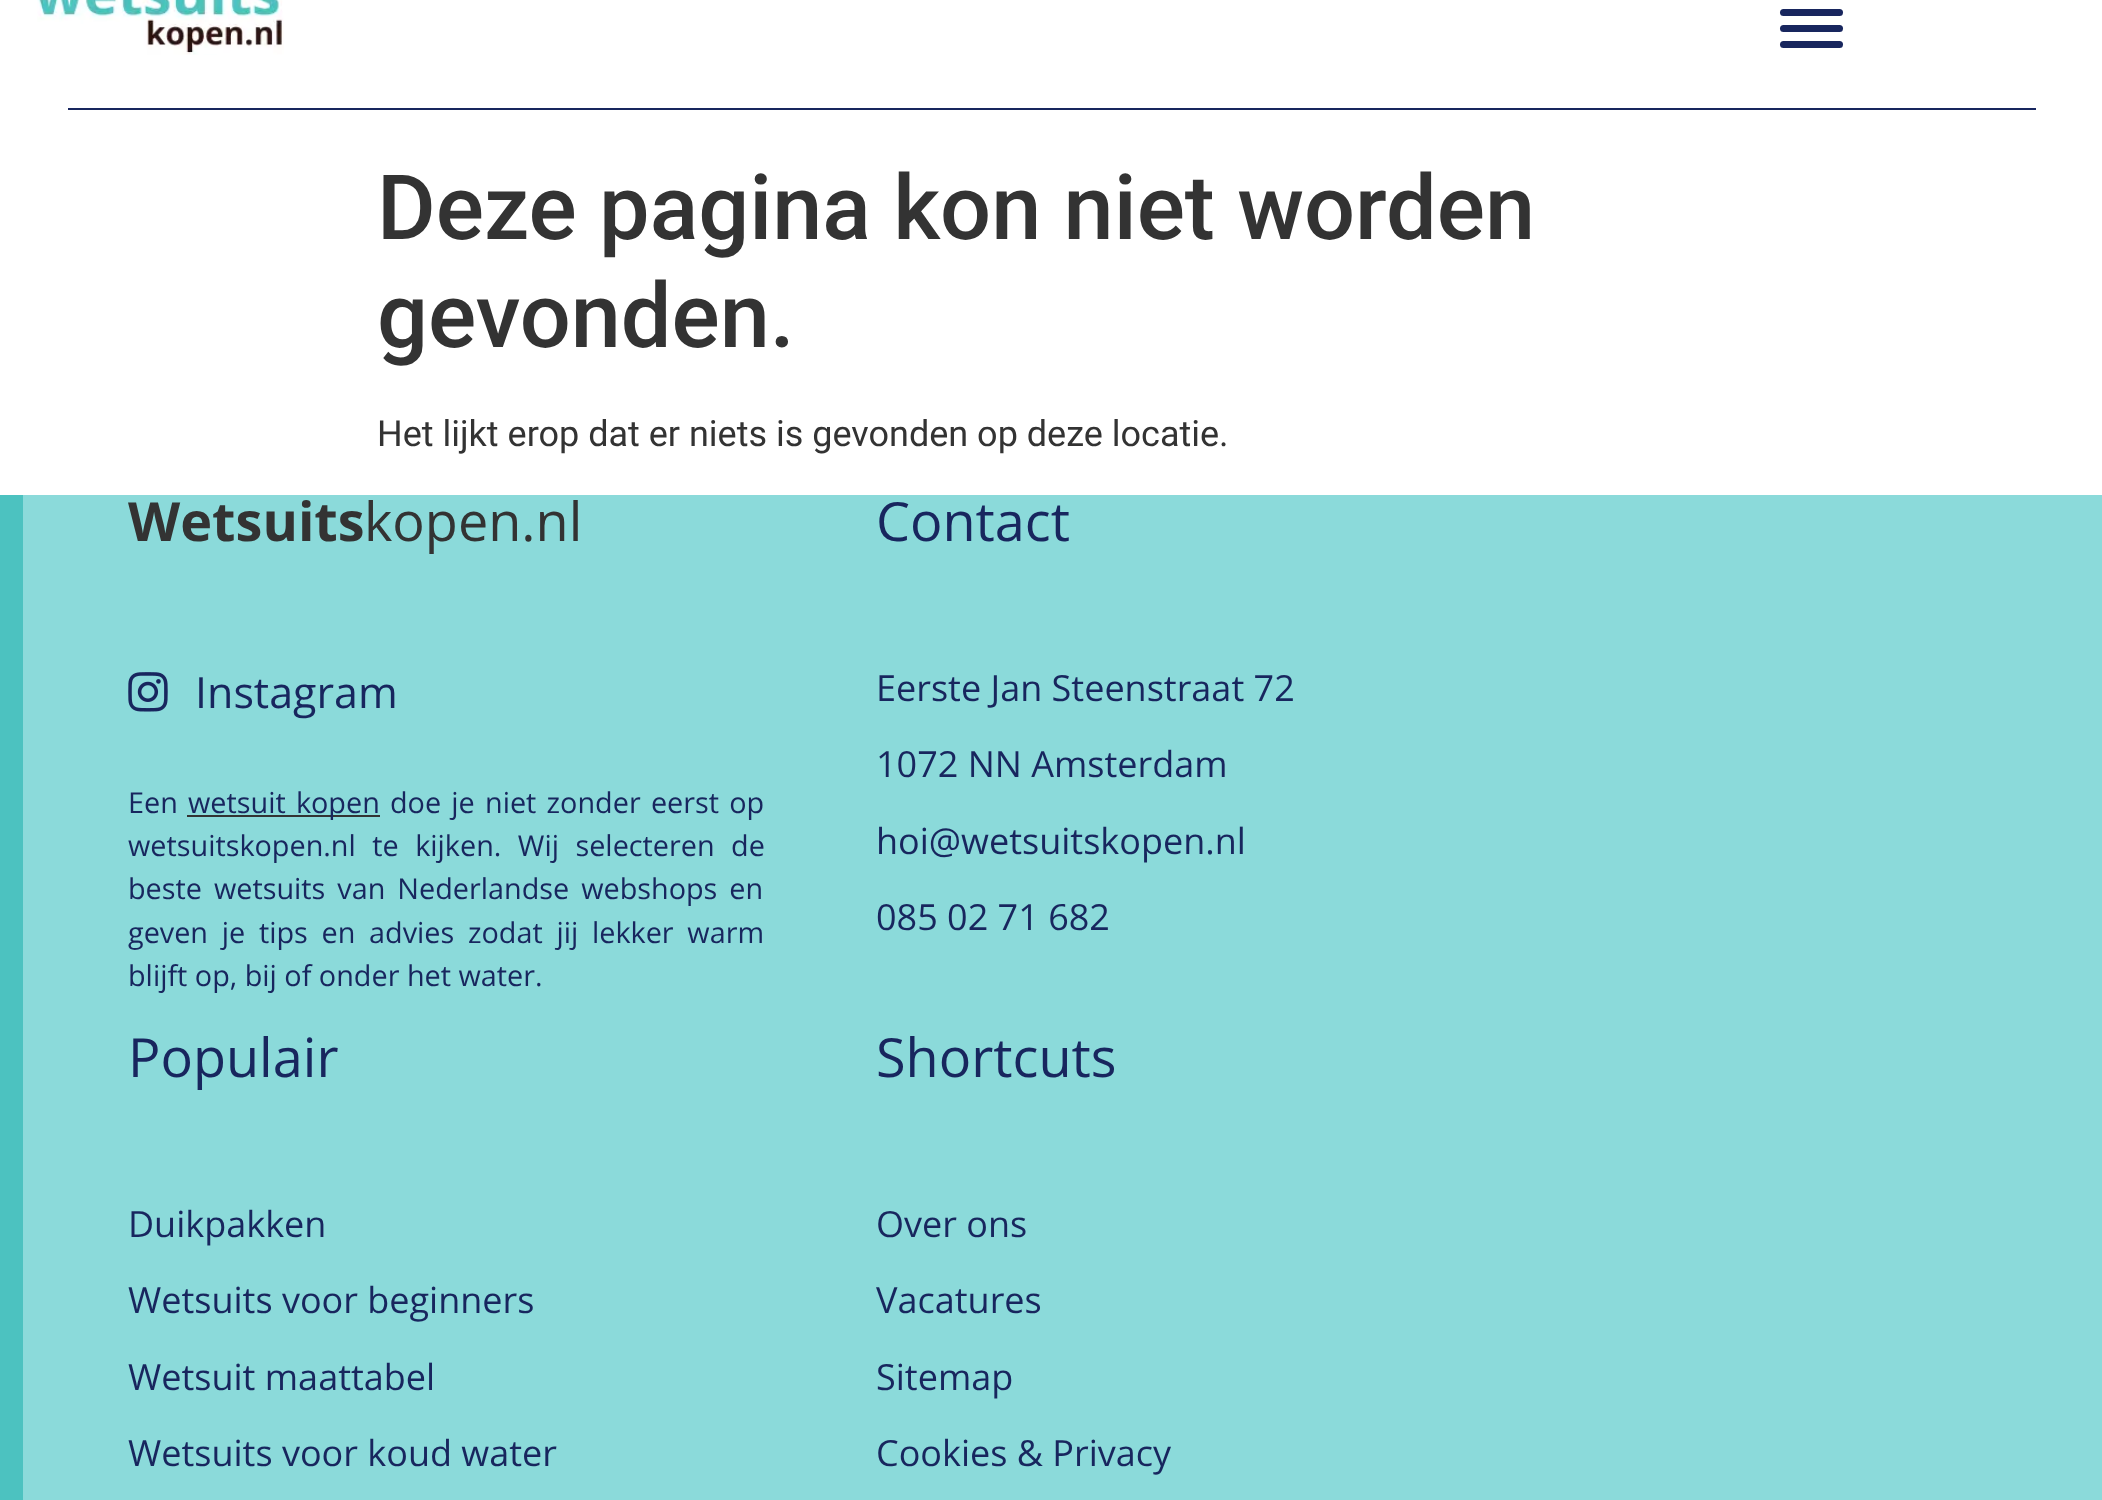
<?xml version="1.0" encoding="UTF-8"?>
<svg xmlns="http://www.w3.org/2000/svg" xmlns:xlink="http://www.w3.org/1999/xlink" width="2102" height="1500">
  <rect width="100%" height="100%" fill="#ffffff" />
  <image x="37" y="0" width="247" height="55" xlink:href="image1.png" />
  <rect x="1780" y="9" width="63" height="7" rx="3.5" fill="#18265e" />
  <rect x="1780" y="25" width="63" height="7" rx="3.5" fill="#18265e" />
  <rect x="1780" y="41" width="63" height="7" rx="3.5" fill="#18265e" />
  <rect x="68" y="108" width="1968" height="2" fill="#18265e" />
  <rect x="23" y="495" width="2079" height="1005" fill="#8bdada" />
  <rect y="495" width="23" height="1005" fill="#4cc2c0" />
  <image x="128" y="672" width="40" height="40" xlink:href="image2.png" />
  <rect x="187" y="815" width="193" height="2" fill="#333333" />
  <text x="377" y="239" style="font-family: Roboto; font-size: 90px; font-weight: 500; fill: #333333">Deze pagina kon niet worden</text>
  <text x="377" y="347" style="font-family: Roboto; font-size: 90px; font-weight: 500; fill: #333333">gevonden.</text>
  <text x="377" y="446" style="font-family: Roboto; font-size: 36px; fill: #333333">Het lijkt erop dat er niets is gevonden op deze locatie.</text>
  <text x="128" y="541" style="font-family: Open Sans; font-size: 54px; font-weight: bold; fill: #333333">Wetsuits</text>
  <text x="364" y="541" style="font-family: Open Sans; font-size: 54px; fill: #333333">kopen.nl</text>
  <text x="195" y="708" style="font-family: Open Sans; font-size: 43px; fill: #18265e">Instagram</text>
  <text x="128" y="813" style="font-family: Open Sans; font-size: 28.8px; fill: #18265e">Een</text>
  <text x="188" y="813" word-spacing="2.75" style="font-family: Open Sans; font-size: 28.8px; fill: #18265e">wetsuit kopen</text>
  <text x="390" y="813" word-spacing="2.75" style="font-family: Open Sans; font-size: 28.8px; fill: #18265e">doe je niet zonder eerst op</text>
  <text x="128" y="856" word-spacing="9" style="font-family: Open Sans; font-size: 28.8px; fill: #18265e">wetsuitskopen.nl te kijken. Wij selecteren de</text>
  <text x="128" y="899" word-spacing="4.5" style="font-family: Open Sans; font-size: 28.8px; fill: #18265e">beste wetsuits van Nederlandse webshops en</text>
  <text x="128" y="943" word-spacing="6.25" style="font-family: Open Sans; font-size: 28.8px; fill: #18265e">geven je tips en advies zodat jij lekker warm</text>
  <text x="128" y="986" style="font-family: Open Sans; font-size: 28.8px; fill: #18265e">blijft op, bij of onder het water.</text>
  <text x="876" y="541" style="font-family: Open Sans; font-size: 54px; fill: #18265e">Contact</text>
  <text x="876" y="701" style="font-family: Open Sans; font-size: 36px; fill: #18265e">Eerste Jan Steenstraat 72</text>
  <text x="876" y="777" style="font-family: Open Sans; font-size: 36px; fill: #18265e">1072 NN Amsterdam</text>
  <text x="876" y="854" style="font-family: Open Sans; font-size: 36px; fill: #18265e">hoi@wetsuitskopen.nl</text>
  <text x="876" y="930" style="font-family: Open Sans; font-size: 36px; fill: #18265e">085 02 71 682</text>
  <text x="128" y="1077" style="font-family: Open Sans; font-size: 54px; fill: #18265e">Populair</text>
  <text x="128" y="1237" style="font-family: Open Sans; font-size: 36px; fill: #18265e">Duikpakken</text>
  <text x="128" y="1313" style="font-family: Open Sans; font-size: 36px; fill: #18265e">Wetsuits voor beginners</text>
  <text x="128" y="1390" style="font-family: Open Sans; font-size: 36px; fill: #18265e">Wetsuit maattabel</text>
  <text x="128" y="1466" style="font-family: Open Sans; font-size: 36px; fill: #18265e">Wetsuits voor koud water</text>
  <text x="876" y="1077" style="font-family: Open Sans; font-size: 54px; fill: #18265e">Shortcuts</text>
  <text x="876" y="1237" style="font-family: Open Sans; font-size: 36px; fill: #18265e">Over ons</text>
  <text x="876" y="1313" style="font-family: Open Sans; font-size: 36px; fill: #18265e">Vacatures</text>
  <text x="876" y="1390" style="font-family: Open Sans; font-size: 36px; fill: #18265e">Sitemap</text>
  <text x="876" y="1466" style="font-family: Open Sans; font-size: 36px; fill: #18265e">Cookies &amp; Privacy</text>
</svg>
